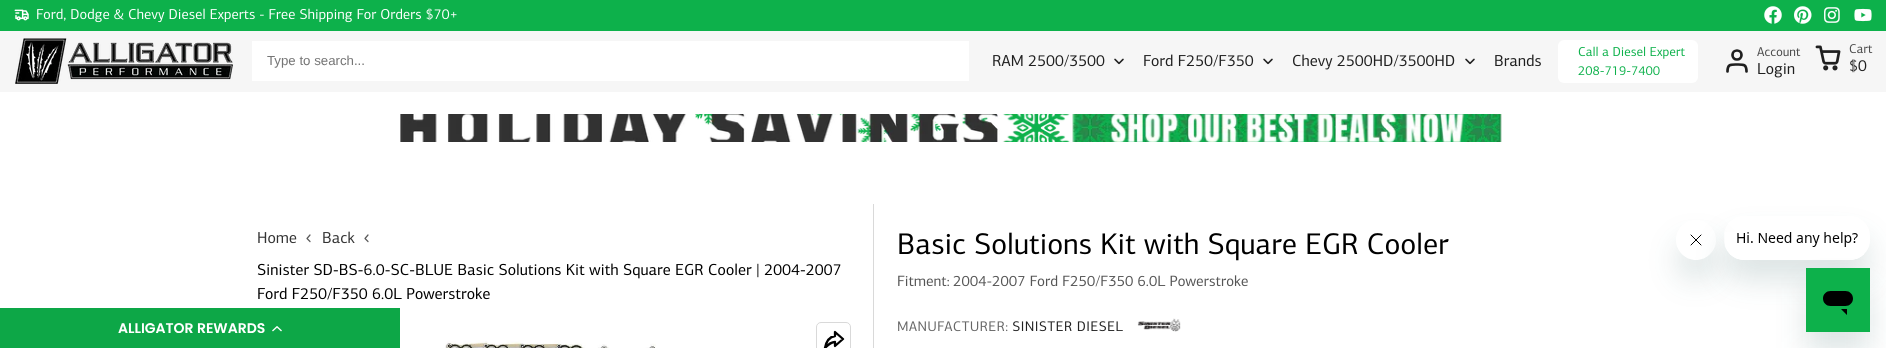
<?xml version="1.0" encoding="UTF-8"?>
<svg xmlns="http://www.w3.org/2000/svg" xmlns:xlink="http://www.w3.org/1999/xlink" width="1886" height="348">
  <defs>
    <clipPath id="clip1"><path d="M 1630 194 h 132 v 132 h -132 z m 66 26 c 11 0 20 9 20 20 c 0 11 -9 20 -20 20 c -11 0 -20 -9 -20 -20 c 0 -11 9 -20 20 -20 z" clip-rule="evenodd" /></clipPath>
    <clipPath id="clip2"><path d="M 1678 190 h 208 v 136 h -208 z m 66 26 h 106 c 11 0 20 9 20 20 v 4 c 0 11 -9 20 -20 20 h -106 c -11 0 -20 -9 -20 -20 v -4 c 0 -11 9 -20 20 -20 z" clip-rule="evenodd" /></clipPath>
  </defs>
  <rect width="100%" height="100%" fill="#ffffff" />
  <rect width="1886" height="31" fill="#0db14b" />
  <image x="14" y="9" width="15" height="12" xlink:href="image1.png" />
  <image x="37" y="8" width="420" height="15" xlink:href="image2.png" />
  <image x="1764" y="6" width="18" height="18" xlink:href="image3.png" />
  <image x="1794" y="6" width="18" height="18" xlink:href="image4.png" />
  <image x="1824" y="7" width="16" height="16" xlink:href="image5.png" />
  <image x="1854" y="8" width="18" height="14" xlink:href="image6.png" />
  <rect y="31" width="1886" height="61" fill="#f6f6f6" />
  <image x="15" y="38" width="218" height="46" xlink:href="image7.png" />
  <rect x="252" y="41" width="717" height="40" fill="#ffffff" />
  <image x="993" y="54" width="112" height="13" xlink:href="image8.png" />
  <image x="1114" y="58" width="10" height="7" xlink:href="image9.png" />
  <image x="1144" y="54" width="110" height="13" xlink:href="image10.png" />
  <image x="1263" y="58" width="10" height="7" xlink:href="image9.png" />
  <image x="1293" y="54" width="162" height="16" xlink:href="image11.png" />
  <image x="1465" y="58" width="10" height="7" xlink:href="image9.png" />
  <image x="1495" y="54" width="46" height="13" xlink:href="image12.png" />
  <rect x="1558" y="40" width="140" height="43" rx="6" fill="#ffffff" />
  <image x="1578" y="46" width="107" height="13" xlink:href="image13.png" />
  <image x="1578" y="66" width="82" height="10" xlink:href="image14.png" />
  <path d="M 1746.5 71.5 c 0 -7.5 -3 -7 -9.5 -7 c -6.5 0 -9.5 -0.5 -9.5 7" fill="none" stroke="#1f1f1f" stroke-width="2.7" stroke-linecap="round" stroke-linejoin="round" />
  <circle cx="1737" cy="55" r="4.5" fill="none" stroke="#1f1f1f" stroke-width="2.7" />
  <image x="1757" y="47" width="44" height="10" xlink:href="image15.png" />
  <image x="1758" y="63" width="37" height="15" xlink:href="image16.png" />
  <image x="1815" y="45" width="26" height="26" xlink:href="image17.png" />
  <image x="1849" y="44" width="24" height="10" xlink:href="image18.png" />
  <image x="1850" y="59" width="17" height="14" xlink:href="image19.png" />
  <image x="400" y="114" width="1102" height="28" xlink:href="image20.png" />
  <rect x="873" y="204" width="1" height="144" fill="#d9d9d9" />
  <image x="258" y="232" width="39" height="12" xlink:href="image21.png" />
  <path d="M 310 241.5 l -3 -3 l 3 -3.5" fill="none" stroke="#5c5c5c" stroke-width="1.2" stroke-linecap="round" stroke-linejoin="round" />
  <image x="323" y="231" width="32" height="13" xlink:href="image22.png" />
  <path d="M 368 241.5 l -3 -3 l 3 -3.5" fill="none" stroke="#5c5c5c" stroke-width="1.2" stroke-linecap="round" stroke-linejoin="round" />
  <image x="257" y="263" width="584" height="16" xlink:href="image23.png" />
  <image x="258" y="287" width="232" height="13" xlink:href="image24.png" />
  <image x="445" y="340" width="211" height="8" xlink:href="image25.png" />
  <rect x="816.5" y="322.5" width="34" height="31" rx="4.5" fill="none" stroke="#d9d9d9" />
  <path d="M 835 332 v 4 c -6.5 1 -9 7 -10 12 c 0 0 5.5 -6 10 -6 v 4 l 8 -7 z" fill="none" stroke="#000000" stroke-width="2.3" stroke-linecap="round" stroke-linejoin="round" />
  <image x="899" y="232" width="550" height="29" xlink:href="image26.png" />
  <image x="898" y="275" width="51" height="12" xlink:href="image27.png" />
  <image x="953" y="275" width="295" height="12" xlink:href="image28.png" />
  <image x="898" y="321" width="110" height="11" xlink:href="image29.png" />
  <image x="1013" y="321" width="110" height="11" xlink:href="image30.png" />
  <image x="1137" y="318" width="44" height="14" xlink:href="image31.png" />
  <rect y="308" width="400" height="40" fill="#0da747" />
  <image x="272" y="326" width="10" height="6" xlink:href="image32.png" />
  <g clip-path="url(#clip1)">
    <rect x="1676" y="240" width="40" height="40" rx="20" fill="#17494d" fill-opacity="0.15" filter="blur(15px)" />
  </g>
  <image x="1690" y="234" width="12" height="12" xlink:href="image34.png" />
  <g clip-path="url(#clip2)">
    <rect x="1724" y="236" width="146" height="44" rx="20" fill="#17494d" fill-opacity="0.15" filter="blur(15px)" />
  </g>
  <image x="1725" y="232" width="139" height="28" xlink:href="image33.png" />
  <rect x="1806" y="288" width="64" height="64" fill="#17494d" fill-opacity="0.15" filter="blur(15px)" />
  <image x="1806" y="268" width="64" height="64" xlink:href="image35.png" />
  <text x="267" y="65" style="font-family: Liberation Sans; font-size: 13.25px; fill: #757575">Type to search...</text>
  <text x="118" y="333" style="font-family: Poppins; font-size: 14px; font-weight: 600; fill: #ffffff">ALLIGATOR REWARDS</text>
</svg>
